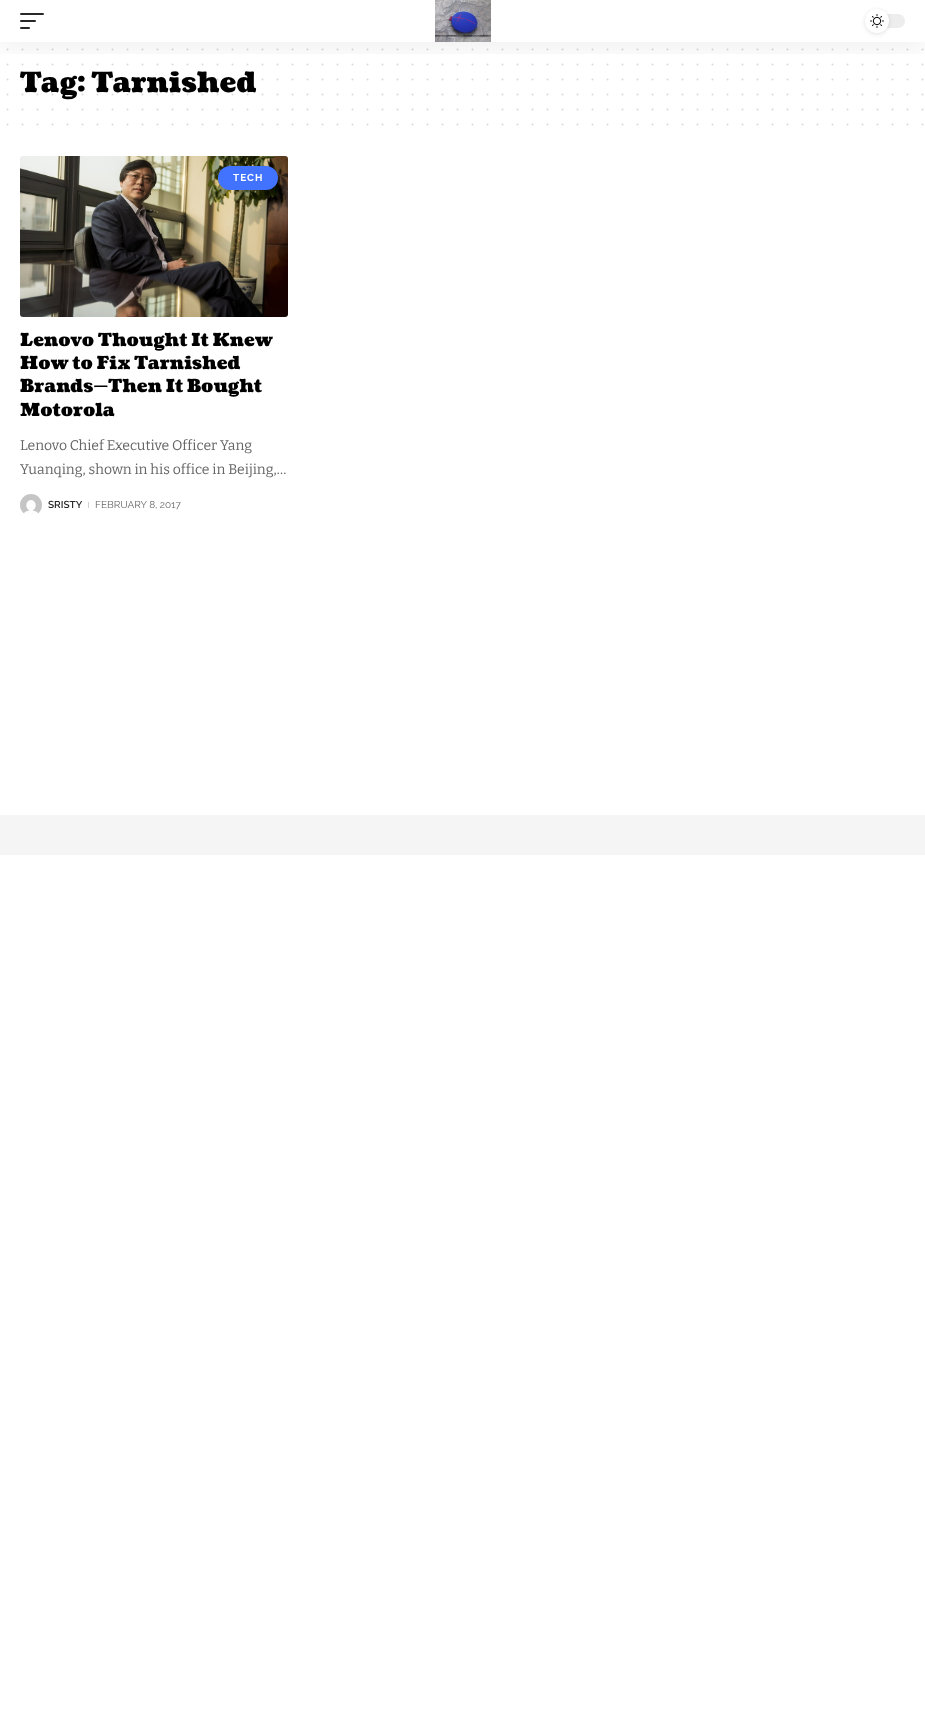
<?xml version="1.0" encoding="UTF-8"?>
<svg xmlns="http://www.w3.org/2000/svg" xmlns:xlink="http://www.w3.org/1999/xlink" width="925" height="1717">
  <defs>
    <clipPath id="clip1"><rect x="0" y="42" width="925" height="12" /></clipPath>
  </defs>
  <rect width="100%" height="100%" fill="#ffffff" />
  <path d="M 7.5 49.5 h 915.2" fill="none" stroke="#d9d9d9" stroke-width="2" stroke-linecap="round" stroke-dasharray="0 15" />
  <path d="M 7.5 64.5 h 915.2" fill="none" stroke="#d9d9d9" stroke-width="2" stroke-linecap="round" stroke-dasharray="0 15" />
  <path d="M 7.5 109.5 h 915.2" fill="none" stroke="#d9d9d9" stroke-width="2" stroke-linecap="round" stroke-dasharray="0 15" />
  <path d="M 7.5 124.5 h 915.2" fill="none" stroke="#d9d9d9" stroke-width="2" stroke-linecap="round" stroke-dasharray="0 15" />
  <image x="20" y="156" width="268" height="161" xlink:href="image3.png" />
  <rect x="218" y="166" width="60" height="24" rx="12" fill="#4173ff" />
  <image x="20" y="494" width="22" height="20" xlink:href="image4.png" />
  <rect x="88" y="502" width="1" height="6" fill="#d1d1d1" />
  <rect y="815" width="925" height="40" fill="#f5f5f5" />
  <text x="20" y="92" style="font-family: Coustard; font-size: 28px; font-weight: 900; fill: #000000">Tag: Tarnished</text>
  <path d="M 7.5 79.5 h 915.2" fill="none" stroke="#000000" stroke-opacity="0.15" stroke-width="2" stroke-linecap="round" stroke-dasharray="0 15" />
  <g clip-path="url(#clip1)">
    <rect y="4" width="925" height="42" fill="#000000" fill-opacity="0.07" filter="blur(15px)" />
  </g>
  <rect x="865" y="14" width="40" height="14" rx="7" fill="#ededed" />
  <rect x="865" y="10" width="24" height="24" rx="12" fill="#000000" fill-opacity="0.12" filter="blur(2px)" />
  <circle cx="877" cy="21" r="12" fill="#ffffff" />
  <image x="870" y="14" width="14" height="14" xlink:href="image2.png" />
  <rect x="20" y="27" width="10" height="2" rx="1" fill="#282828" />
  <rect x="20" y="20" width="16" height="2" rx="1" fill="#282828" />
  <rect x="20" y="13" width="24" height="2" rx="1" fill="#282828" />
  <image x="435" y="0" width="56" height="42" xlink:href="image1.png" />
  <path d="M 7.5 94.5 h 915.2" fill="none" stroke="#000000" stroke-opacity="0.15" stroke-width="2" stroke-linecap="round" stroke-dasharray="0 15" />
  <text x="233" y="181" style="font-family: Raleway; font-size: 10px; font-weight: bold; letter-spacing: 1px; fill: #ffffff">TECH</text>
  <text x="20" y="346" style="font-family: Coustard; font-size: 18px; font-weight: 900; fill: #000000">Lenovo Thought It Knew</text>
  <text x="20" y="369" style="font-family: Coustard; font-size: 18px; font-weight: 900; fill: #000000">How to Fix Tarnished</text>
  <text x="20" y="392" style="font-family: Coustard; font-size: 18px; font-weight: 900; fill: #000000">Brands—Then It Bought</text>
  <text x="20" y="416" style="font-family: Coustard; font-size: 18px; font-weight: 900; fill: #000000">Motorola</text>
  <text x="20" y="450" style="font-family: Bitter; font-size: 14px; fill: #666666">Lenovo Chief Executive Officer Yang</text>
  <text x="20" y="474" style="font-family: Bitter; font-size: 14px; fill: #666666">Yuanqing, shown in his office in Beijing,…</text>
  <text x="48" y="508" style="font-family: Raleway; font-size: 10px; font-weight: 600; fill: #282828">SRISTY</text>
  <text x="95" y="508" style="font-family: Raleway; font-size: 10px; fill: #666666">FEBRUARY 8, 2017</text>
</svg>
